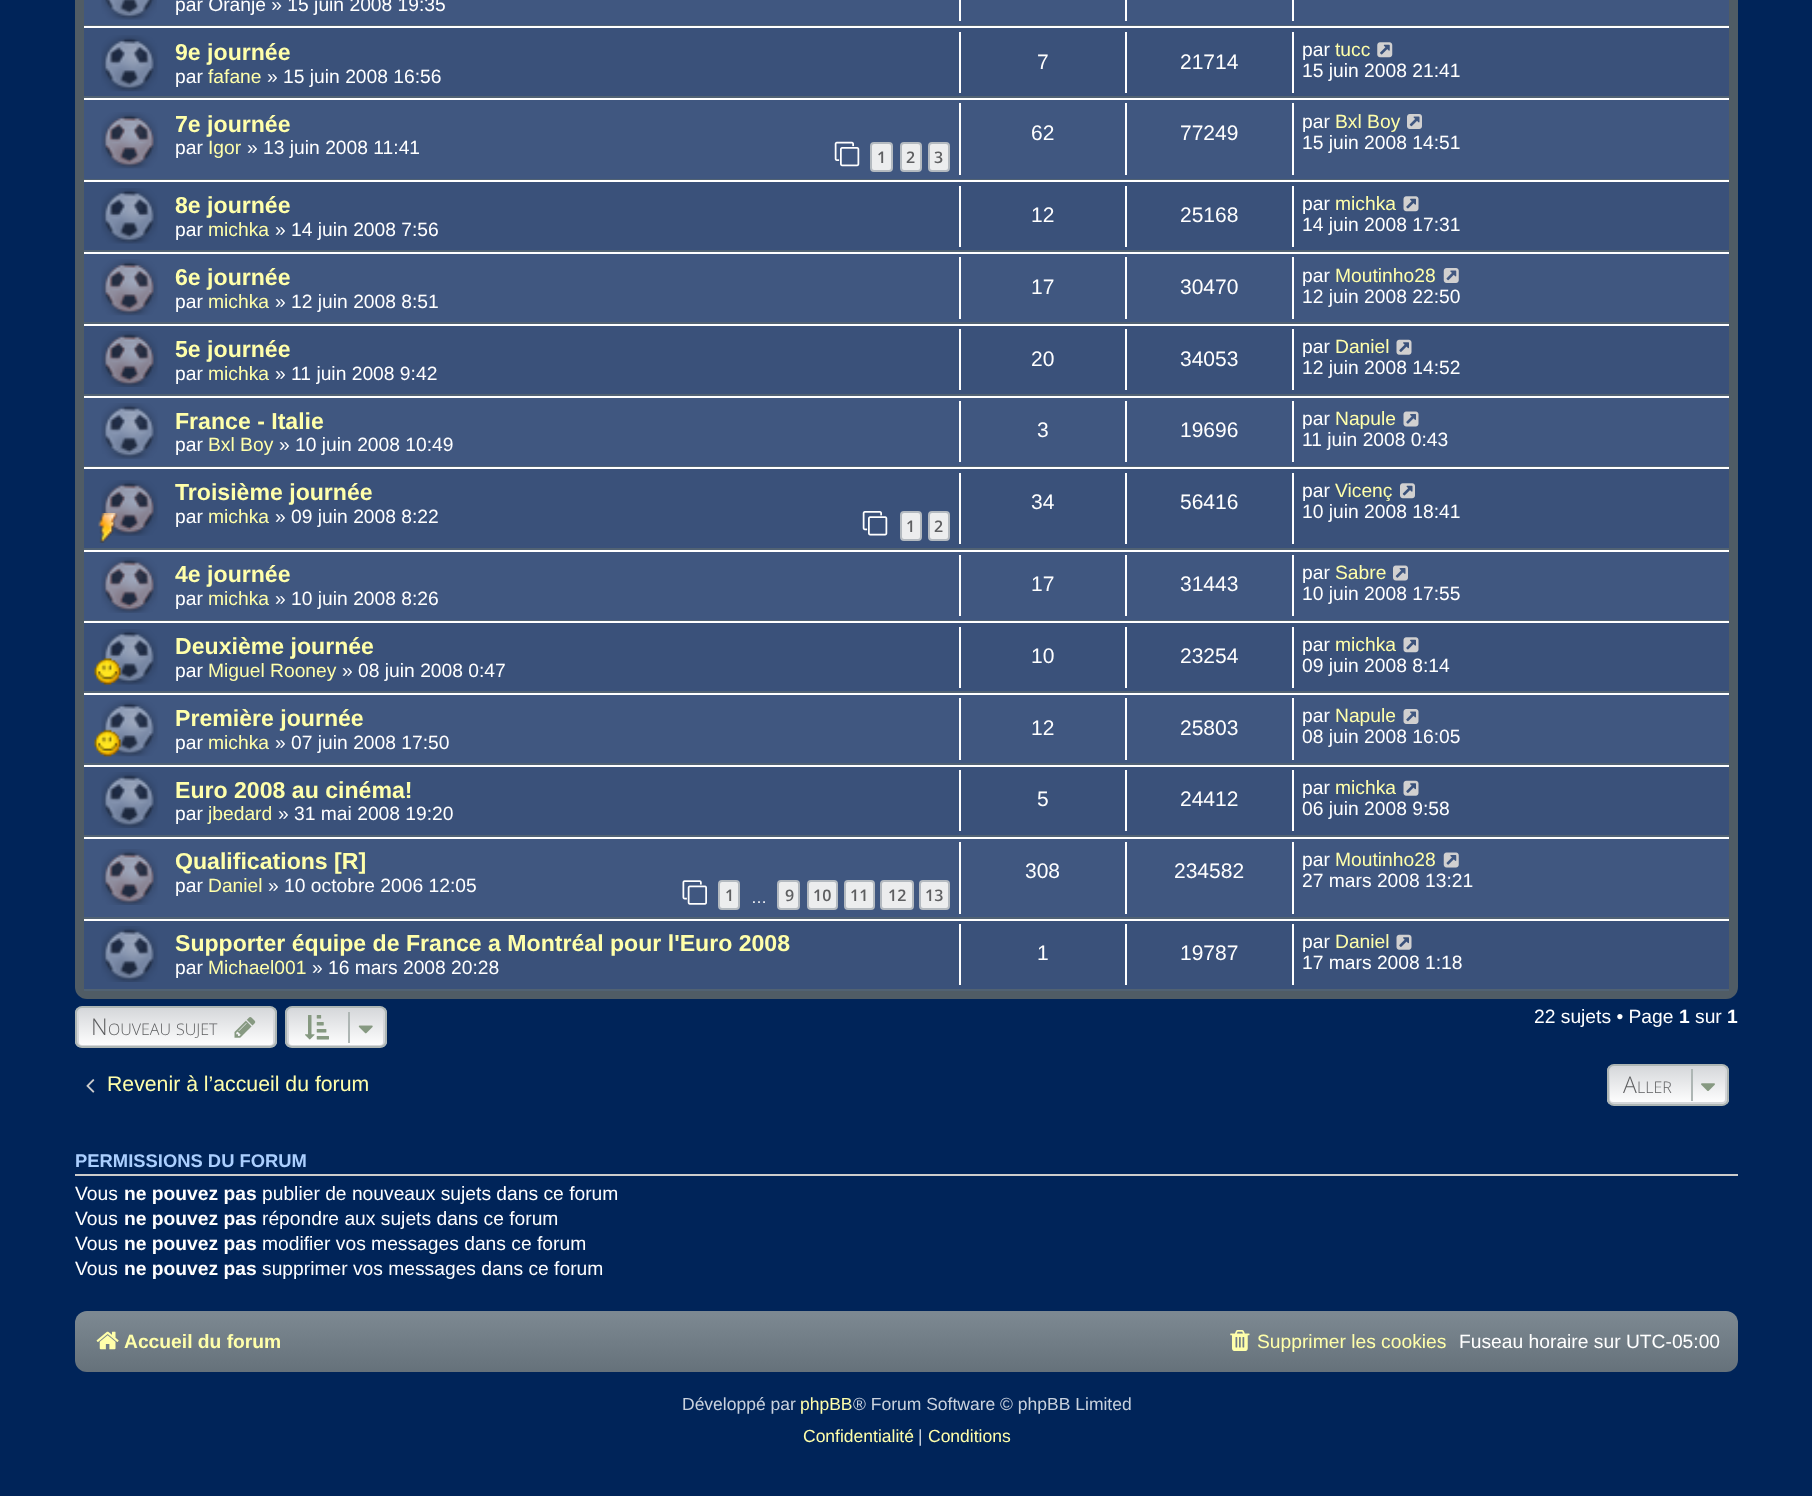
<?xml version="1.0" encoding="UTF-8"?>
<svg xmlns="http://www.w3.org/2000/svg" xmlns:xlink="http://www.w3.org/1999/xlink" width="1812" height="1496">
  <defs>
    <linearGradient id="g1" gradientUnits="userSpaceOnUse" x1="906" y1="-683" x2="907" y2="999"><stop offset="0" stop-color="#7c8891" /><stop offset="0" stop-color="#7c8891" /><stop offset="0.1" stop-color="#505c65" /><stop offset="1" stop-color="#505c65" /></linearGradient>
    <clipPath id="clip1"><rect x="75" y="1006" width="202" height="42" rx="7" /></clipPath>
    <linearGradient id="g2" gradientUnits="userSpaceOnUse" x1="176" y1="1008" x2="176" y2="1047"><stop offset="0" stop-color="#d5d7da" /><stop offset="1" stop-color="#ffffff" /></linearGradient>
    <clipPath id="clip2"><rect x="285" y="1006" width="102" height="42" rx="7" /></clipPath>
    <linearGradient id="g3" gradientUnits="userSpaceOnUse" x1="336" y1="1008" x2="336" y2="1047"><stop offset="0" stop-color="#d5d7da" /><stop offset="1" stop-color="#ffffff" /></linearGradient>
    <clipPath id="clip3"><rect x="1607" y="1064" width="122" height="42" rx="7" /></clipPath>
    <linearGradient id="g4" gradientUnits="userSpaceOnUse" x1="1668" y1="1066" x2="1668" y2="1104"><stop offset="0" stop-color="#d5d7da" /><stop offset="1" stop-color="#ffffff" /></linearGradient>
    <linearGradient id="g5" gradientUnits="userSpaceOnUse" x1="907" y1="1311" x2="907" y2="1426"><stop offset="0" stop-color="#7c8891" /><stop offset="0.03" stop-color="#7c8891" /><stop offset="1" stop-color="#505c65" /></linearGradient>
  </defs>
  <rect width="100%" height="100%" fill="#002459" />
  <rect x="75" y="-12" width="1663" height="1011" rx="12" fill="url(#g1)" />
  <rect x="84" width="1645" height="25" fill="#405780" />
  <rect x="84" y="25" width="1645" height="1" fill="#516273" />
  <image x="101" y="0" width="56" height="20" xlink:href="image1.png" />
  <rect x="959" width="2" height="21" fill="#ffffff" />
  <rect x="1125" width="2" height="21" fill="#ffffff" />
  <rect x="1292" width="2" height="21" fill="#ffffff" />
  <rect x="84" y="28" width="1645" height="68" fill="#3a517a" />
  <rect x="84" y="26" width="1645" height="2" fill="#ffffff" />
  <rect x="84" y="96" width="1645" height="2" fill="#516273" />
  <image x="101" y="35" width="57" height="57" xlink:href="image2.png" />
  <rect x="959" y="32" width="2" height="61" fill="#ffffff" />
  <rect x="1125" y="32" width="2" height="61" fill="#ffffff" />
  <rect x="1292" y="32" width="2" height="61" fill="#ffffff" />
  <image x="1377" y="42" width="16" height="16" xlink:href="image3.png" />
  <rect x="84" y="100" width="1645" height="79" fill="#405780" />
  <rect x="84" y="98" width="1645" height="2" fill="#ffffff" />
  <rect x="84" y="179" width="1645" height="1" fill="#516273" />
  <image x="101" y="112" width="57" height="57" xlink:href="image4.png" />
  <image x="834" y="141" width="26" height="26" xlink:href="image5.png" />
  <rect x="871" y="143" width="21" height="28" rx="3" fill="#ecedee" stroke="#b4bac0" stroke-width="2" />
  <rect x="901" y="143" width="20" height="28" rx="3" fill="#ecedee" stroke="#b4bac0" stroke-width="2" />
  <rect x="929" y="143" width="20" height="28" rx="3" fill="#ecedee" stroke="#b4bac0" stroke-width="2" />
  <rect x="959" y="103" width="2" height="72" fill="#ffffff" />
  <rect x="1125" y="103" width="2" height="72" fill="#ffffff" />
  <rect x="1292" y="103" width="2" height="72" fill="#ffffff" />
  <image x="1407" y="114" width="15" height="15" xlink:href="image6.png" />
  <rect x="84" y="182" width="1645" height="68" fill="#3a517a" />
  <rect x="84" y="180" width="1645" height="2" fill="#ffffff" />
  <rect x="84" y="250" width="1645" height="2" fill="#516273" />
  <image x="101" y="188" width="57" height="56" xlink:href="image7.png" />
  <rect x="959" y="186" width="2" height="61" fill="#ffffff" />
  <rect x="1125" y="186" width="2" height="61" fill="#ffffff" />
  <rect x="1292" y="186" width="2" height="61" fill="#ffffff" />
  <image x="1403" y="196" width="16" height="16" xlink:href="image8.png" />
  <rect x="84" y="254" width="1645" height="68" fill="#405780" />
  <rect x="84" y="252" width="1645" height="2" fill="#ffffff" />
  <rect x="84" y="322" width="1645" height="2" fill="#516273" />
  <image x="101" y="259" width="57" height="57" xlink:href="image4.png" />
  <rect x="959" y="257" width="2" height="62" fill="#ffffff" />
  <rect x="1125" y="257" width="2" height="62" fill="#ffffff" />
  <rect x="1292" y="257" width="2" height="62" fill="#ffffff" />
  <image x="1443" y="268" width="16" height="15" xlink:href="image9.png" />
  <rect x="84" y="326" width="1645" height="68" fill="#3a517a" />
  <rect x="84" y="324" width="1645" height="2" fill="#ffffff" />
  <rect x="84" y="394" width="1645" height="2" fill="#516273" />
  <image x="101" y="331" width="57" height="56" xlink:href="image10.png" />
  <rect x="959" y="329" width="2" height="61" fill="#ffffff" />
  <rect x="1125" y="329" width="2" height="61" fill="#ffffff" />
  <rect x="1292" y="329" width="2" height="61" fill="#ffffff" />
  <image x="1396" y="339" width="16" height="16" xlink:href="image11.png" />
  <rect x="84" y="398" width="1645" height="68" fill="#405780" />
  <rect x="84" y="396" width="1645" height="2" fill="#ffffff" />
  <rect x="84" y="466" width="1645" height="1" fill="#516273" />
  <image x="101" y="403" width="57" height="56" xlink:href="image12.png" />
  <rect x="959" y="401" width="2" height="61" fill="#ffffff" />
  <rect x="1125" y="401" width="2" height="61" fill="#ffffff" />
  <rect x="1292" y="401" width="2" height="61" fill="#ffffff" />
  <image x="1403" y="411" width="16" height="16" xlink:href="image13.png" />
  <rect x="84" y="469" width="1645" height="79" fill="#3a517a" />
  <rect x="84" y="467" width="1645" height="2" fill="#ffffff" />
  <rect x="84" y="548" width="1645" height="2" fill="#516273" />
  <image x="101" y="480" width="57" height="56" xlink:href="image14.png" />
  <image x="98" y="513" width="20" height="30" xlink:href="image15.png" />
  <image x="862" y="511" width="26" height="25" xlink:href="image16.png" />
  <rect x="901" y="512" width="20" height="28" rx="3" fill="#ecedee" stroke="#b4bac0" stroke-width="2" />
  <rect x="929" y="512" width="20" height="28" rx="3" fill="#ecedee" stroke="#b4bac0" stroke-width="2" />
  <rect x="959" y="473" width="2" height="71" fill="#ffffff" />
  <rect x="1125" y="473" width="2" height="71" fill="#ffffff" />
  <rect x="1292" y="473" width="2" height="71" fill="#ffffff" />
  <image x="1400" y="483" width="15" height="16" xlink:href="image17.png" />
  <rect x="84" y="552" width="1645" height="68" fill="#405780" />
  <rect x="84" y="550" width="1645" height="2" fill="#ffffff" />
  <rect x="84" y="620" width="1645" height="1" fill="#516273" />
  <image x="101" y="557" width="57" height="56" xlink:href="image18.png" />
  <rect x="959" y="555" width="2" height="61" fill="#ffffff" />
  <rect x="1125" y="555" width="2" height="61" fill="#ffffff" />
  <rect x="1292" y="555" width="2" height="61" fill="#ffffff" />
  <image x="1393" y="565" width="15" height="16" xlink:href="image19.png" />
  <rect x="84" y="623" width="1645" height="68" fill="#3a517a" />
  <rect x="84" y="621" width="1645" height="2" fill="#ffffff" />
  <rect x="84" y="691" width="1645" height="2" fill="#516273" />
  <image x="101" y="629" width="57" height="56" xlink:href="image7.png" />
  <image x="94" y="658" width="28" height="27" xlink:href="image20.png" />
  <rect x="959" y="627" width="2" height="61" fill="#ffffff" />
  <rect x="1125" y="627" width="2" height="61" fill="#ffffff" />
  <rect x="1292" y="627" width="2" height="61" fill="#ffffff" />
  <image x="1403" y="637" width="16" height="16" xlink:href="image8.png" />
  <rect x="84" y="695" width="1645" height="68" fill="#405780" />
  <rect x="84" y="693" width="1645" height="2" fill="#ffffff" />
  <rect x="84" y="763" width="1645" height="2" fill="#516273" />
  <image x="101" y="700" width="57" height="57" xlink:href="image21.png" />
  <image x="94" y="729" width="28" height="28" xlink:href="image22.png" />
  <rect x="959" y="698" width="2" height="62" fill="#ffffff" />
  <rect x="1125" y="698" width="2" height="62" fill="#ffffff" />
  <rect x="1292" y="698" width="2" height="62" fill="#ffffff" />
  <image x="1403" y="709" width="16" height="15" xlink:href="image23.png" />
  <rect x="84" y="767" width="1645" height="68" fill="#3a517a" />
  <rect x="84" y="765" width="1645" height="2" fill="#ffffff" />
  <rect x="84" y="835" width="1645" height="2" fill="#516273" />
  <image x="101" y="772" width="57" height="56" xlink:href="image24.png" />
  <rect x="959" y="770" width="2" height="61" fill="#ffffff" />
  <rect x="1125" y="770" width="2" height="61" fill="#ffffff" />
  <rect x="1292" y="770" width="2" height="61" fill="#ffffff" />
  <image x="1403" y="780" width="16" height="16" xlink:href="image11.png" />
  <rect x="84" y="839" width="1645" height="78" fill="#405780" />
  <rect x="84" y="837" width="1645" height="2" fill="#ffffff" />
  <rect x="84" y="917" width="1645" height="2" fill="#516273" />
  <image x="101" y="849" width="57" height="56" xlink:href="image25.png" />
  <image x="682" y="880" width="25" height="25" xlink:href="image26.png" />
  <rect x="719" y="881" width="20" height="28" rx="3" fill="#ecedee" stroke="#b4bac0" stroke-width="2" />
  <rect x="778" y="881" width="21" height="28" rx="3" fill="#ecedee" stroke="#b4bac0" stroke-width="2" />
  <rect x="808" y="881" width="29" height="28" rx="3" fill="#ecedee" stroke="#b4bac0" stroke-width="2" />
  <rect x="845" y="881" width="29" height="28" rx="3" fill="#ecedee" stroke="#b4bac0" stroke-width="2" />
  <rect x="881" y="881" width="32" height="28" rx="3" fill="#ecedee" stroke="#b4bac0" stroke-width="2" />
  <rect x="920" y="881" width="29" height="28" rx="3" fill="#ecedee" stroke="#b4bac0" stroke-width="2" />
  <rect x="959" y="842" width="2" height="72" fill="#ffffff" />
  <rect x="1125" y="842" width="2" height="72" fill="#ffffff" />
  <rect x="1292" y="842" width="2" height="72" fill="#ffffff" />
  <image x="1443" y="852" width="16" height="16" xlink:href="image27.png" />
  <rect x="84" y="921" width="1645" height="68" fill="#3a517a" />
  <rect x="84" y="919" width="1645" height="2" fill="#ffffff" />
  <rect x="84" y="989" width="1645" height="2" fill="#516273" />
  <image x="101" y="926" width="57" height="56" xlink:href="image28.png" />
  <rect x="959" y="924" width="2" height="61" fill="#ffffff" />
  <rect x="1125" y="924" width="2" height="61" fill="#ffffff" />
  <rect x="1292" y="924" width="2" height="61" fill="#ffffff" />
  <image x="1396" y="934" width="16" height="16" xlink:href="image29.png" />
  <g clip-path="url(#clip1)">
    <rect x="75" y="1008" width="202" height="39" fill="url(#g2)" />
  </g>
  <rect x="78" y="1009" width="196" height="37" rx="4" fill="none" stroke="#d5d7da" stroke-width="2" />
  <rect x="76" y="1007" width="200" height="40" rx="6" fill="none" stroke="#aeb6b4" stroke-width="2" />
  <image x="234" y="1017" width="22" height="21" xlink:href="image30.png" />
  <g clip-path="url(#clip2)">
    <rect x="285" y="1008" width="102" height="39" fill="url(#g3)" />
  </g>
  <rect x="288" y="1009" width="96" height="37" rx="4" fill="none" stroke="#d5d7da" stroke-width="2" />
  <rect x="286" y="1007" width="100" height="40" rx="6" fill="none" stroke="#aeb6b4" stroke-width="2" />
  <image x="305" y="1015" width="24" height="25" xlink:href="image31.png" />
  <rect x="348" y="1012" width="2" height="31" fill="#aeb6b4" />
  <image x="358" y="1025" width="15" height="9" xlink:href="image32.png" />
  <image x="86" y="1079" width="9" height="14" xlink:href="image33.png" />
  <g clip-path="url(#clip3)">
    <rect x="1607" y="1066" width="122" height="38" fill="url(#g4)" />
  </g>
  <rect x="1609" y="1067" width="117" height="36" rx="4" fill="none" stroke="#d5d7da" stroke-width="2" />
  <rect x="1608" y="1065" width="120" height="40" rx="6" fill="none" stroke="#aeb6b4" stroke-width="2" />
  <rect x="1691" y="1069" width="2" height="32" fill="#aeb6b4" />
  <image x="1701" y="1083" width="14" height="8" xlink:href="image34.png" />
  <rect x="75" y="1174" width="1663" height="2" fill="#cccccc" />
  <rect x="75" y="1311" width="1663" height="61" rx="12" fill="url(#g5)" />
  <image x="96" y="1331" width="23" height="19" xlink:href="image35.png" />
  <image x="1230" y="1330" width="20" height="21" xlink:href="image36.png" />
  <text x="175" y="11" style="font-family: Liberation Sans; font-size: 19.25px; fill: #ffffff">par Oranje » 15 juin 2008 19:35</text>
  <text x="175" y="60" style="font-family: Liberation Sans; font-size: 23.1px; font-weight: bold; fill: #ffffaa">9e journée</text>
  <text x="175" y="83" style="font-family: Liberation Sans; font-size: 19.25px; fill: #ffffff">par</text>
  <text x="208" y="83" style="font-family: Liberation Sans; font-size: 19.25px; fill: #ffffaa">fafane</text>
  <text x="267" y="83" style="font-family: Liberation Sans; font-size: 19.25px; fill: #ffffff">» 15 juin 2008 16:56</text>
  <text x="1037" y="69" style="font-family: Liberation Sans; font-size: 21px; fill: #ffffff">7</text>
  <text x="1180" y="69" style="font-family: Liberation Sans; font-size: 21px; fill: #ffffff">21714</text>
  <text x="1302" y="56" style="font-family: Liberation Sans; font-size: 19.25px; fill: #ffffff">par</text>
  <text x="1335" y="56" style="font-family: Liberation Sans; font-size: 19.25px; fill: #ffffaa">tucc</text>
  <text x="1302" y="77" style="font-family: Liberation Sans; font-size: 19.25px; fill: #ffffff">15 juin 2008 21:41</text>
  <text x="175" y="132" style="font-family: Liberation Sans; font-size: 23.1px; font-weight: bold; fill: #ffffaa">7e journée</text>
  <text x="175" y="154" style="font-family: Liberation Sans; font-size: 19.25px; fill: #ffffff">par</text>
  <text x="208" y="154" style="font-family: Liberation Sans; font-size: 19.25px; fill: #ffffaa">Igor</text>
  <text x="247" y="154" style="font-family: Liberation Sans; font-size: 19.25px; fill: #ffffff">» 13 juin 2008 11:41</text>
  <text x="877" y="163" style="font-family: Open Sans; font-size: 16px; font-weight: 600; fill: #5e5f61">1</text>
  <text x="906" y="163" style="font-family: Open Sans; font-size: 16px; font-weight: 600; fill: #5e5f61">2</text>
  <text x="934" y="163" style="font-family: Open Sans; font-size: 16px; font-weight: 600; fill: #5e5f61">3</text>
  <text x="1031" y="140" style="font-family: Liberation Sans; font-size: 21px; fill: #ffffff">62</text>
  <text x="1180" y="140" style="font-family: Liberation Sans; font-size: 21px; fill: #ffffff">77249</text>
  <text x="1302" y="128" style="font-family: Liberation Sans; font-size: 19.25px; fill: #ffffff">par</text>
  <text x="1335" y="128" style="font-family: Liberation Sans; font-size: 19.25px; fill: #ffffaa">Bxl Boy</text>
  <text x="1302" y="149" style="font-family: Liberation Sans; font-size: 19.25px; fill: #ffffff">15 juin 2008 14:51</text>
  <text x="175" y="213" style="font-family: Liberation Sans; font-size: 23.1px; font-weight: bold; fill: #ffffaa">8e journée</text>
  <text x="175" y="236" style="font-family: Liberation Sans; font-size: 19.25px; fill: #ffffff">par</text>
  <text x="208" y="236" style="font-family: Liberation Sans; font-size: 19.25px; fill: #ffffaa">michka</text>
  <text x="275" y="236" style="font-family: Liberation Sans; font-size: 19.25px; fill: #ffffff">» 14 juin 2008 7:56</text>
  <text x="1031" y="222" style="font-family: Liberation Sans; font-size: 21px; fill: #ffffff">12</text>
  <text x="1180" y="222" style="font-family: Liberation Sans; font-size: 21px; fill: #ffffff">25168</text>
  <text x="1302" y="210" style="font-family: Liberation Sans; font-size: 19.25px; fill: #ffffff">par</text>
  <text x="1335" y="210" style="font-family: Liberation Sans; font-size: 19.25px; fill: #ffffaa">michka</text>
  <text x="1302" y="231" style="font-family: Liberation Sans; font-size: 19.25px; fill: #ffffff">14 juin 2008 17:31</text>
  <text x="175" y="285" style="font-family: Liberation Sans; font-size: 23.1px; font-weight: bold; fill: #ffffaa">6e journée</text>
  <text x="175" y="308" style="font-family: Liberation Sans; font-size: 19.25px; fill: #ffffff">par</text>
  <text x="208" y="308" style="font-family: Liberation Sans; font-size: 19.25px; fill: #ffffaa">michka</text>
  <text x="275" y="308" style="font-family: Liberation Sans; font-size: 19.25px; fill: #ffffff">» 12 juin 2008 8:51</text>
  <text x="1031" y="294" style="font-family: Liberation Sans; font-size: 21px; fill: #ffffff">17</text>
  <text x="1180" y="294" style="font-family: Liberation Sans; font-size: 21px; fill: #ffffff">30470</text>
  <text x="1302" y="282" style="font-family: Liberation Sans; font-size: 19.25px; fill: #ffffff">par</text>
  <text x="1335" y="282" style="font-family: Liberation Sans; font-size: 19.25px; fill: #ffffaa">Moutinho28</text>
  <text x="1302" y="303" style="font-family: Liberation Sans; font-size: 19.25px; fill: #ffffff">12 juin 2008 22:50</text>
  <text x="175" y="357" style="font-family: Liberation Sans; font-size: 23.1px; font-weight: bold; fill: #ffffaa">5e journée</text>
  <text x="175" y="380" style="font-family: Liberation Sans; font-size: 19.25px; fill: #ffffff">par</text>
  <text x="208" y="380" style="font-family: Liberation Sans; font-size: 19.25px; fill: #ffffaa">michka</text>
  <text x="275" y="380" style="font-family: Liberation Sans; font-size: 19.25px; fill: #ffffff">» 11 juin 2008 9:42</text>
  <text x="1031" y="366" style="font-family: Liberation Sans; font-size: 21px; fill: #ffffff">20</text>
  <text x="1180" y="366" style="font-family: Liberation Sans; font-size: 21px; fill: #ffffff">34053</text>
  <text x="1302" y="353" style="font-family: Liberation Sans; font-size: 19.25px; fill: #ffffff">par</text>
  <text x="1335" y="353" style="font-family: Liberation Sans; font-size: 19.25px; fill: #ffffaa">Daniel</text>
  <text x="1302" y="374" style="font-family: Liberation Sans; font-size: 19.25px; fill: #ffffff">12 juin 2008 14:52</text>
  <text x="175" y="429" style="font-family: Liberation Sans; font-size: 23.1px; font-weight: bold; fill: #ffffaa">France - Italie</text>
  <text x="175" y="451" style="font-family: Liberation Sans; font-size: 19.25px; fill: #ffffff">par</text>
  <text x="208" y="451" style="font-family: Liberation Sans; font-size: 19.25px; fill: #ffffaa">Bxl Boy</text>
  <text x="279" y="451" style="font-family: Liberation Sans; font-size: 19.25px; fill: #ffffff">» 10 juin 2008 10:49</text>
  <text x="1037" y="437" style="font-family: Liberation Sans; font-size: 21px; fill: #ffffff">3</text>
  <text x="1180" y="437" style="font-family: Liberation Sans; font-size: 21px; fill: #ffffff">19696</text>
  <text x="1302" y="425" style="font-family: Liberation Sans; font-size: 19.25px; fill: #ffffff">par</text>
  <text x="1335" y="425" style="font-family: Liberation Sans; font-size: 19.25px; fill: #ffffaa">Napule</text>
  <text x="1302" y="446" style="font-family: Liberation Sans; font-size: 19.25px; fill: #ffffff">11 juin 2008 0:43</text>
  <text x="175" y="500" style="font-family: Liberation Sans; font-size: 23.1px; font-weight: bold; fill: #ffffaa">Troisième journée</text>
  <text x="175" y="523" style="font-family: Liberation Sans; font-size: 19.25px; fill: #ffffff">par</text>
  <text x="208" y="523" style="font-family: Liberation Sans; font-size: 19.25px; fill: #ffffaa">michka</text>
  <text x="275" y="523" style="font-family: Liberation Sans; font-size: 19.25px; fill: #ffffff">» 09 juin 2008 8:22</text>
  <text x="906" y="532" style="font-family: Open Sans; font-size: 16px; font-weight: 600; fill: #5e5f61">1</text>
  <text x="934" y="532" style="font-family: Open Sans; font-size: 16px; font-weight: 600; fill: #5e5f61">2</text>
  <text x="1031" y="509" style="font-family: Liberation Sans; font-size: 21px; fill: #ffffff">34</text>
  <text x="1180" y="509" style="font-family: Liberation Sans; font-size: 21px; fill: #ffffff">56416</text>
  <text x="1302" y="497" style="font-family: Liberation Sans; font-size: 19.25px; fill: #ffffff">par</text>
  <text x="1335" y="497" style="font-family: Liberation Sans; font-size: 19.25px; fill: #ffffaa">Vicenç</text>
  <text x="1302" y="518" style="font-family: Liberation Sans; font-size: 19.25px; fill: #ffffff">10 juin 2008 18:41</text>
  <text x="175" y="582" style="font-family: Liberation Sans; font-size: 23.1px; font-weight: bold; fill: #ffffaa">4e journée</text>
  <text x="175" y="605" style="font-family: Liberation Sans; font-size: 19.25px; fill: #ffffff">par</text>
  <text x="208" y="605" style="font-family: Liberation Sans; font-size: 19.25px; fill: #ffffaa">michka</text>
  <text x="275" y="605" style="font-family: Liberation Sans; font-size: 19.25px; fill: #ffffff">» 10 juin 2008 8:26</text>
  <text x="1031" y="591" style="font-family: Liberation Sans; font-size: 21px; fill: #ffffff">17</text>
  <text x="1180" y="591" style="font-family: Liberation Sans; font-size: 21px; fill: #ffffff">31443</text>
  <text x="1302" y="579" style="font-family: Liberation Sans; font-size: 19.25px; fill: #ffffff">par</text>
  <text x="1335" y="579" style="font-family: Liberation Sans; font-size: 19.25px; fill: #ffffaa">Sabre</text>
  <text x="1302" y="600" style="font-family: Liberation Sans; font-size: 19.25px; fill: #ffffff">10 juin 2008 17:55</text>
  <text x="175" y="654" style="font-family: Liberation Sans; font-size: 23.1px; font-weight: bold; fill: #ffffaa">Deuxième journée</text>
  <text x="175" y="677" style="font-family: Liberation Sans; font-size: 19.25px; fill: #ffffff">par</text>
  <text x="208" y="677" style="font-family: Liberation Sans; font-size: 19.25px; fill: #ffffaa">Miguel Rooney</text>
  <text x="342" y="677" style="font-family: Liberation Sans; font-size: 19.25px; fill: #ffffff">» 08 juin 2008 0:47</text>
  <text x="1031" y="663" style="font-family: Liberation Sans; font-size: 21px; fill: #ffffff">10</text>
  <text x="1180" y="663" style="font-family: Liberation Sans; font-size: 21px; fill: #ffffff">23254</text>
  <text x="1302" y="651" style="font-family: Liberation Sans; font-size: 19.25px; fill: #ffffff">par</text>
  <text x="1335" y="651" style="font-family: Liberation Sans; font-size: 19.25px; fill: #ffffaa">michka</text>
  <text x="1302" y="672" style="font-family: Liberation Sans; font-size: 19.25px; fill: #ffffff">09 juin 2008 8:14</text>
  <text x="175" y="726" style="font-family: Liberation Sans; font-size: 23.1px; font-weight: bold; fill: #ffffaa">Première journée</text>
  <text x="175" y="749" style="font-family: Liberation Sans; font-size: 19.25px; fill: #ffffff">par</text>
  <text x="208" y="749" style="font-family: Liberation Sans; font-size: 19.25px; fill: #ffffaa">michka</text>
  <text x="275" y="749" style="font-family: Liberation Sans; font-size: 19.25px; fill: #ffffff">» 07 juin 2008 17:50</text>
  <text x="1031" y="735" style="font-family: Liberation Sans; font-size: 21px; fill: #ffffff">12</text>
  <text x="1180" y="735" style="font-family: Liberation Sans; font-size: 21px; fill: #ffffff">25803</text>
  <text x="1302" y="722" style="font-family: Liberation Sans; font-size: 19.25px; fill: #ffffff">par</text>
  <text x="1335" y="722" style="font-family: Liberation Sans; font-size: 19.25px; fill: #ffffaa">Napule</text>
  <text x="1302" y="743" style="font-family: Liberation Sans; font-size: 19.25px; fill: #ffffff">08 juin 2008 16:05</text>
  <text x="175" y="798" style="font-family: Liberation Sans; font-size: 23.1px; font-weight: bold; fill: #ffffaa">Euro 2008 au cinéma!</text>
  <text x="175" y="820" style="font-family: Liberation Sans; font-size: 19.25px; fill: #ffffff">par</text>
  <text x="208" y="820" style="font-family: Liberation Sans; font-size: 19.25px; fill: #ffffaa">jbedard</text>
  <text x="278" y="820" style="font-family: Liberation Sans; font-size: 19.25px; fill: #ffffff">» 31 mai 2008 19:20</text>
  <text x="1037" y="806" style="font-family: Liberation Sans; font-size: 21px; fill: #ffffff">5</text>
  <text x="1180" y="806" style="font-family: Liberation Sans; font-size: 21px; fill: #ffffff">24412</text>
  <text x="1302" y="794" style="font-family: Liberation Sans; font-size: 19.25px; fill: #ffffff">par</text>
  <text x="1335" y="794" style="font-family: Liberation Sans; font-size: 19.25px; fill: #ffffaa">michka</text>
  <text x="1302" y="815" style="font-family: Liberation Sans; font-size: 19.25px; fill: #ffffff">06 juin 2008 9:58</text>
  <text x="175" y="869" style="font-family: Liberation Sans; font-size: 23.1px; font-weight: bold; fill: #ffffaa">Qualifications [R]</text>
  <text x="175" y="892" style="font-family: Liberation Sans; font-size: 19.25px; fill: #ffffff">par</text>
  <text x="208" y="892" style="font-family: Liberation Sans; font-size: 19.25px; fill: #ffffaa">Daniel</text>
  <text x="268" y="892" style="font-family: Liberation Sans; font-size: 19.25px; fill: #ffffff">» 10 octobre 2006 12:05</text>
  <text x="725" y="901" style="font-family: Open Sans; font-size: 16px; font-weight: 600; fill: #5e5f61">1</text>
  <text x="751" y="903" style="font-family: Liberation Sans; font-size: 16px; fill: #ffffff">…</text>
  <text x="785" y="901" style="font-family: Open Sans; font-size: 16px; font-weight: 600; fill: #5e5f61">9</text>
  <text x="813" y="901" style="font-family: Open Sans; font-size: 16px; font-weight: 600; fill: #5e5f61">10</text>
  <text x="850" y="901" style="font-family: Open Sans; font-size: 16px; font-weight: 600; fill: #5e5f61">11</text>
  <text x="888" y="901" style="font-family: Open Sans; font-size: 16px; font-weight: 600; fill: #5e5f61">12</text>
  <text x="925" y="901" style="font-family: Open Sans; font-size: 16px; font-weight: 600; fill: #5e5f61">13</text>
  <text x="1025" y="878" style="font-family: Liberation Sans; font-size: 21px; fill: #ffffff">308</text>
  <text x="1174" y="878" style="font-family: Liberation Sans; font-size: 21px; fill: #ffffff">234582</text>
  <text x="1302" y="866" style="font-family: Liberation Sans; font-size: 19.25px; fill: #ffffff">par</text>
  <text x="1335" y="866" style="font-family: Liberation Sans; font-size: 19.25px; fill: #ffffaa">Moutinho28</text>
  <text x="1302" y="887" style="font-family: Liberation Sans; font-size: 19.25px; fill: #ffffff">27 mars 2008 13:21</text>
  <text x="175" y="951" style="font-family: Liberation Sans; font-size: 23.1px; font-weight: bold; fill: #ffffaa">Supporter équipe de France a Montréal pour l'Euro 2008</text>
  <text x="175" y="974" style="font-family: Liberation Sans; font-size: 19.25px; fill: #ffffff">par</text>
  <text x="208" y="974" style="font-family: Liberation Sans; font-size: 19.25px; fill: #ffffaa">Michael001</text>
  <text x="312" y="974" style="font-family: Liberation Sans; font-size: 19.25px; fill: #ffffff">» 16 mars 2008 20:28</text>
  <text x="1037" y="960" style="font-family: Liberation Sans; font-size: 21px; fill: #ffffff">1</text>
  <text x="1180" y="960" style="font-family: Liberation Sans; font-size: 21px; fill: #ffffff">19787</text>
  <text x="1302" y="948" style="font-family: Liberation Sans; font-size: 19.25px; fill: #ffffff">par</text>
  <text x="1335" y="948" style="font-family: Liberation Sans; font-size: 19.25px; fill: #ffffaa">Daniel</text>
  <text x="1302" y="969" style="font-family: Liberation Sans; font-size: 19.25px; fill: #ffffff">17 mars 2008 1:18</text>
  <text x="91" y="1035" style="font-family: Open Sans; font-size: 23px; font-weight: 300; fill: #5e5f61">N</text>
  <text x="108" y="1035" style="font-family: Open Sans; font-size: 16px; font-weight: 300; fill: #5e5f61">OUVEAU</text>
  <text x="176" y="1035" style="font-family: Open Sans; font-size: 16px; font-weight: 300; fill: #5e5f61">SUJET</text>
  <text x="1534" y="1023" style="font-family: Liberation Sans; font-size: 19.25px; fill: #ffffff">22 sujets • Page</text>
  <text x="1679" y="1023" style="font-family: Liberation Sans; font-size: 19.25px; font-weight: bold; fill: #ffffff">1</text>
  <text x="1695" y="1023" style="font-family: Liberation Sans; font-size: 19.25px; fill: #ffffff">sur</text>
  <text x="1727" y="1023" style="font-family: Liberation Sans; font-size: 19.25px; font-weight: bold; fill: #ffffff">1</text>
  <text x="107" y="1091" style="font-family: Liberation Sans; font-size: 21.25px; fill: #ffffaa">Revenir à l’accueil du forum</text>
  <text x="1623" y="1093" style="font-family: Open Sans; font-size: 23px; font-weight: 300; fill: #5e5f61">A</text>
  <text x="1637" y="1093" style="font-family: Open Sans; font-size: 16px; font-weight: 300; fill: #5e5f61">LLER</text>
  <text x="75" y="1167" style="font-family: Liberation Sans; font-size: 18.4px; font-weight: bold; fill: #abcfff">PERMISSIONS DU FORUM</text>
  <text x="75" y="1200" style="font-family: Liberation Sans; font-size: 19.25px; fill: #ffffff">Vous</text>
  <text x="124" y="1200" style="font-family: Liberation Sans; font-size: 19.25px; font-weight: bold; fill: #ffffff">ne pouvez pas</text>
  <text x="262" y="1200" style="font-family: Liberation Sans; font-size: 19.25px; fill: #ffffff">publier de nouveaux sujets dans ce forum</text>
  <text x="75" y="1225" style="font-family: Liberation Sans; font-size: 19.25px; fill: #ffffff">Vous</text>
  <text x="124" y="1225" style="font-family: Liberation Sans; font-size: 19.25px; font-weight: bold; fill: #ffffff">ne pouvez pas</text>
  <text x="262" y="1225" style="font-family: Liberation Sans; font-size: 19.25px; fill: #ffffff">répondre aux sujets dans ce forum</text>
  <text x="75" y="1250" style="font-family: Liberation Sans; font-size: 19.25px; fill: #ffffff">Vous</text>
  <text x="124" y="1250" style="font-family: Liberation Sans; font-size: 19.25px; font-weight: bold; fill: #ffffff">ne pouvez pas</text>
  <text x="262" y="1250" style="font-family: Liberation Sans; font-size: 19.25px; fill: #ffffff">modifier vos messages dans ce forum</text>
  <text x="75" y="1275" style="font-family: Liberation Sans; font-size: 19.25px; fill: #ffffff">Vous</text>
  <text x="124" y="1275" style="font-family: Liberation Sans; font-size: 19.25px; font-weight: bold; fill: #ffffff">ne pouvez pas</text>
  <text x="262" y="1275" style="font-family: Liberation Sans; font-size: 19.25px; fill: #ffffff">supprimer vos messages dans ce forum</text>
  <text x="124" y="1348" style="font-family: Liberation Sans; font-size: 19.25px; font-weight: bold; fill: #ffffaa">Accueil du forum</text>
  <text x="1257" y="1348" style="font-family: Liberation Sans; font-size: 19.25px; fill: #ffffaa">Supprimer les cookies</text>
  <text x="1459" y="1348" style="font-family: Liberation Sans; font-size: 19.25px; fill: #ffffff">Fuseau horaire sur UTC-05:00</text>
  <text x="682" y="1410" style="font-family: Liberation Sans; font-size: 17.5px; fill: #c9d2de">Développé par</text>
  <text x="800" y="1410" style="font-family: Liberation Sans; font-size: 17.5px; fill: #ffffaa">phpBB</text>
  <text x="853" y="1410" style="font-family: Liberation Sans; font-size: 17.5px; fill: #c9d2de">® Forum Software © phpBB Limited</text>
  <text x="803" y="1442" style="font-family: Liberation Sans; font-size: 17.5px; fill: #ffffaa">Confidentialité</text>
  <text x="918" y="1442" style="font-family: Liberation Sans; font-size: 17.5px; fill: #c9d2de">|</text>
  <text x="928" y="1442" style="font-family: Liberation Sans; font-size: 17.5px; fill: #ffffaa">Conditions</text>
</svg>
